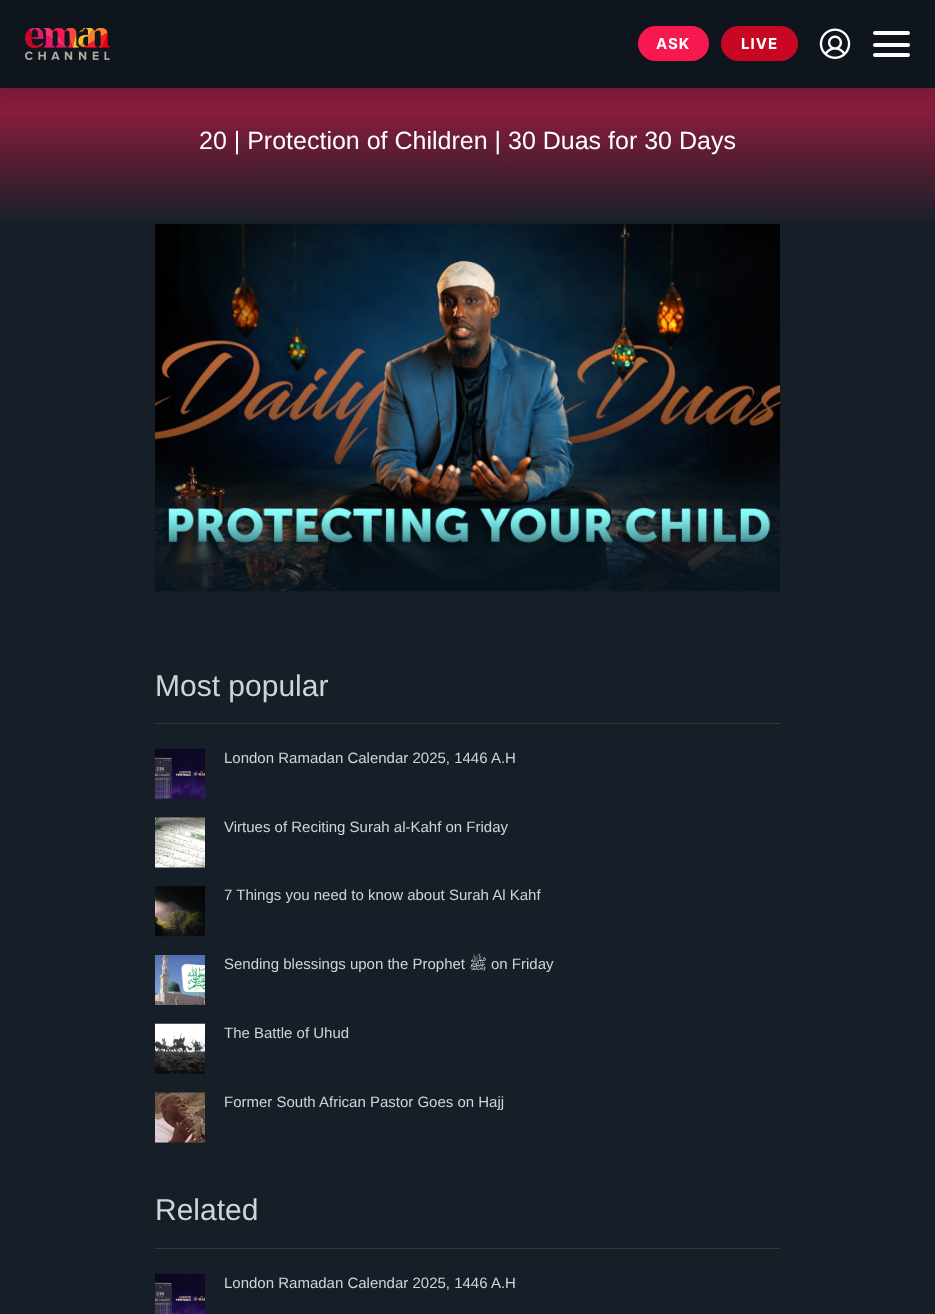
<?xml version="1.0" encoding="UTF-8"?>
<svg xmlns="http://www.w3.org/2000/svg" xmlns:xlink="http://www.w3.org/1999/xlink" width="935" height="1314">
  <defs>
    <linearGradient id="g1" gradientUnits="userSpaceOnUse" x1="468" y1="112" x2="468" y2="224"><stop offset="0" stop-color="#871c3c" /><stop offset="1" stop-color="#161f28" /></linearGradient>
  </defs>
  <rect width="100%" height="100%" fill="#161f28" />
  <rect y="88" width="935" height="25" fill="#871c3c" />
  <rect y="113" width="935" height="109" fill="url(#g1)" />
  <rect y="4" width="935" height="87" fill="#000000" fill-opacity="0.2" filter="blur(9.5px)" />
  <rect width="935" height="88" fill="#0f151c" />
  <image x="25" y="28" width="85" height="32" xlink:href="image1.png" />
  <rect x="638" y="26" width="71" height="35" rx="17.5" fill="#f7184f" />
  <rect x="721" y="26" width="77" height="35" rx="17.5" fill="#c80725" />
  <image x="819" y="28" width="32" height="31" xlink:href="image2.png" />
  <rect x="873" y="31" width="37" height="4" rx="2" fill="#ffffff" />
  <rect x="873" y="43" width="37" height="4" rx="2" fill="#ffffff" />
  <rect x="873" y="53" width="37" height="4" rx="2" fill="#ffffff" />
  <image x="155" y="224" width="625" height="368" xlink:href="image3.png" />
  <rect x="155" y="723" width="625" height="1" fill="#343a40" />
  <image x="155" y="748" width="50" height="51" xlink:href="image4.png" />
  <image x="155" y="817" width="50" height="51" xlink:href="image5.png" />
  <image x="155" y="886" width="50" height="51" xlink:href="image6.png" />
  <image x="155" y="955" width="50" height="50" xlink:href="image7.png" />
  <image x="155" y="1023" width="50" height="51" xlink:href="image8.png" />
  <image x="155" y="1092" width="50" height="51" xlink:href="image9.png" />
  <rect x="155" y="1248" width="625" height="1" fill="#343a40" />
  <image x="155" y="1273" width="50" height="41" xlink:href="image10.png" />
  <text x="656" y="49" style="font-family: Inter; font-size: 15px; font-weight: bold; letter-spacing: 1px; fill: #ffffff">ASK</text>
  <text x="741" y="49" style="font-family: Inter; font-size: 15px; font-weight: bold; letter-spacing: 1px; fill: #ffffff">LIVE</text>
  <text x="199" y="149" style="font-family: Liberation Sans; font-size: 25px; fill: #ffffff">20 | Protection of Children | 30 Duas for 30 Days</text>
  <text x="155" y="696" style="font-family: Liberation Sans; font-size: 30px; fill: #ced4da">Most popular</text>
  <text x="224" y="763" style="font-family: Liberation Sans; font-size: 15px; fill: #ced4da">London Ramadan Calendar 2025, 1446 A.H</text>
  <text x="224" y="832" style="font-family: Liberation Sans; font-size: 15px; fill: #ced4da">Virtues of Reciting Surah al-Kahf on Friday</text>
  <text x="224" y="900" style="font-family: Liberation Sans; font-size: 15px; fill: #ced4da">7 Things you need to know about Surah Al Kahf</text>
  <text x="224" y="969" style="font-family: Liberation Sans; font-size: 15px; fill: #ced4da">Sending blessings upon the Prophet</text>
  <text x="487" y="969" style="font-family: Lateef; font-size: 15px; direction: rtl; fill: #ced4da">ﷺ</text>
  <text x="491" y="969" style="font-family: Liberation Sans; font-size: 15px; fill: #ced4da">on Friday</text>
  <text x="224" y="1038" style="font-family: Liberation Sans; font-size: 15px; fill: #ced4da">The Battle of Uhud</text>
  <text x="224" y="1107" style="font-family: Liberation Sans; font-size: 15px; fill: #ced4da">Former South African Pastor Goes on Hajj</text>
  <text x="155" y="1220" style="font-family: Liberation Sans; font-size: 30px; fill: #ced4da">Related</text>
  <text x="224" y="1288" style="font-family: Liberation Sans; font-size: 15px; fill: #ced4da">London Ramadan Calendar 2025, 1446 A.H</text>
</svg>
